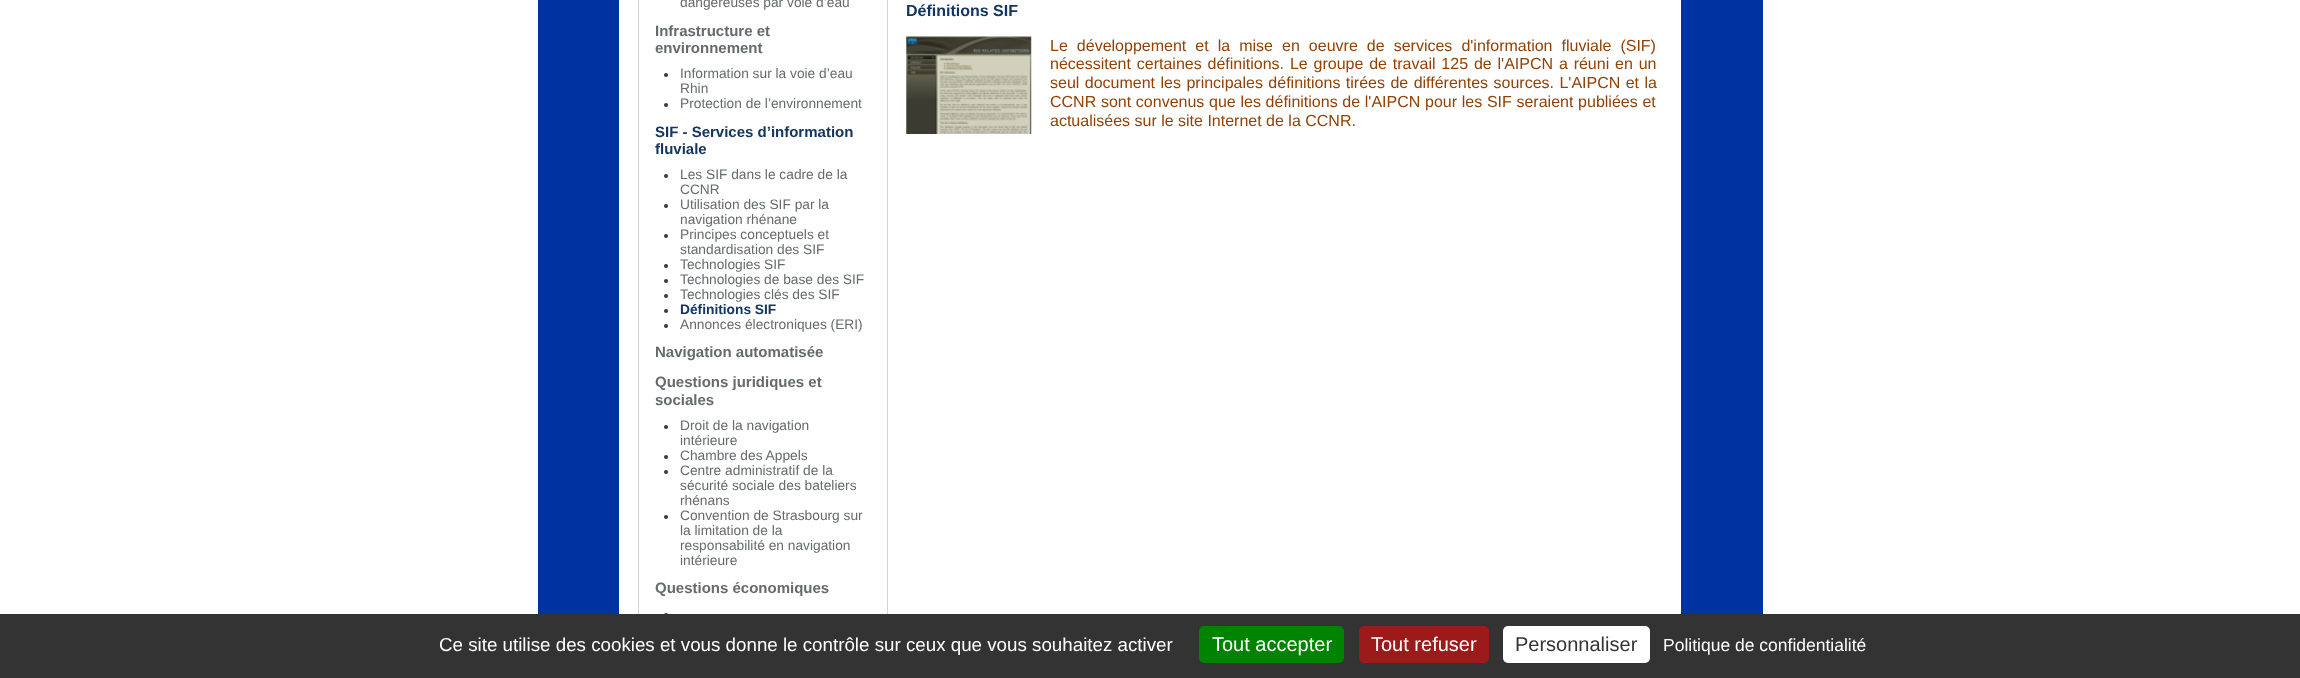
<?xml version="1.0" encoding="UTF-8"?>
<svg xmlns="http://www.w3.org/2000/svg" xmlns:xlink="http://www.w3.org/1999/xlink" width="2300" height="678">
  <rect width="100%" height="100%" fill="#ffffff" />
  <rect x="538" width="1225" height="614" fill="#0033a1" />
  <rect x="619" width="1062" height="614" fill="#ffffff" />
  <rect x="638.5" y="-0.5" width="249" height="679" fill="none" stroke="#d7d2cb" />
  <circle cx="666" cy="75" r="2" fill="#373a36" />
  <circle cx="666" cy="105" r="2" fill="#373a36" />
  <circle cx="666" cy="176" r="2" fill="#373a36" />
  <circle cx="666" cy="206" r="2" fill="#373a36" />
  <circle cx="666" cy="236" r="2" fill="#373a36" />
  <circle cx="666" cy="266" r="2" fill="#373a36" />
  <circle cx="666" cy="281" r="2" fill="#373a36" />
  <circle cx="666" cy="296" r="2" fill="#373a36" />
  <circle cx="666" cy="311" r="2" fill="#373a36" />
  <circle cx="666" cy="326" r="2" fill="#373a36" />
  <circle cx="666" cy="427" r="2" fill="#373a36" />
  <circle cx="666" cy="457" r="2" fill="#373a36" />
  <circle cx="666" cy="472" r="2" fill="#373a36" />
  <circle cx="666" cy="517" r="2" fill="#373a36" />
  <circle cx="666" cy="615" r="2" fill="#373a36" />
  <image x="906" y="36" width="126" height="98" xlink:href="image1.png" />
  <rect y="614" width="2300" height="64" fill="#333333" />
  <rect x="1199" y="626" width="145" height="37" rx="5" fill="#008300" />
  <rect x="1359" y="626" width="130" height="37" rx="5" fill="#9c1a1a" />
  <rect x="1503" y="626" width="147" height="37" rx="5" fill="#ffffff" />
  <text x="680" y="7" style="font-family: Liberation Sans; font-size: 13.75px; fill: #656b6d">dangereuses par voie d’eau</text>
  <text x="655" y="36" style="font-family: Liberation Sans; font-size: 15px; font-weight: bold; fill: #656b6d">Infrastructure et</text>
  <text x="655" y="53" style="font-family: Liberation Sans; font-size: 15px; font-weight: bold; fill: #656b6d">environnement</text>
  <text x="680" y="78" style="font-family: Liberation Sans; font-size: 13.75px; fill: #656b6d">Information sur la voie d’eau</text>
  <text x="680" y="93" style="font-family: Liberation Sans; font-size: 13.75px; fill: #656b6d">Rhin</text>
  <text x="680" y="108" style="font-family: Liberation Sans; font-size: 13.75px; fill: #656b6d">Protection de l’environnement</text>
  <text x="655" y="137" style="font-family: Liberation Sans; font-size: 15px; font-weight: bold; fill: #123660">SIF - Services d’information</text>
  <text x="655" y="154" style="font-family: Liberation Sans; font-size: 15px; font-weight: bold; fill: #123660">fluviale</text>
  <text x="680" y="179" style="font-family: Liberation Sans; font-size: 13.75px; fill: #656b6d">Les SIF dans le cadre de la</text>
  <text x="680" y="194" style="font-family: Liberation Sans; font-size: 13.75px; fill: #656b6d">CCNR</text>
  <text x="680" y="209" style="font-family: Liberation Sans; font-size: 13.75px; fill: #656b6d">Utilisation des SIF par la</text>
  <text x="680" y="224" style="font-family: Liberation Sans; font-size: 13.75px; fill: #656b6d">navigation rhénane</text>
  <text x="680" y="239" style="font-family: Liberation Sans; font-size: 13.75px; fill: #656b6d">Principes conceptuels et</text>
  <text x="680" y="254" style="font-family: Liberation Sans; font-size: 13.75px; fill: #656b6d">standardisation des SIF</text>
  <text x="680" y="269" style="font-family: Liberation Sans; font-size: 13.75px; fill: #656b6d">Technologies SIF</text>
  <text x="680" y="284" style="font-family: Liberation Sans; font-size: 13.75px; fill: #656b6d">Technologies de base des SIF</text>
  <text x="680" y="299" style="font-family: Liberation Sans; font-size: 13.75px; fill: #656b6d">Technologies clés des SIF</text>
  <text x="680" y="314" style="font-family: Liberation Sans; font-size: 13.75px; font-weight: bold; fill: #123660">Définitions SIF</text>
  <text x="680" y="329" style="font-family: Liberation Sans; font-size: 13.75px; fill: #656b6d">Annonces électroniques (ERI)</text>
  <text x="655" y="357" style="font-family: Liberation Sans; font-size: 15px; font-weight: bold; fill: #656b6d">Navigation automatisée</text>
  <text x="655" y="387" style="font-family: Liberation Sans; font-size: 15px; font-weight: bold; fill: #656b6d">Questions juridiques et</text>
  <text x="655" y="405" style="font-family: Liberation Sans; font-size: 15px; font-weight: bold; fill: #656b6d">sociales</text>
  <text x="680" y="430" style="font-family: Liberation Sans; font-size: 13.75px; fill: #656b6d">Droit de la navigation</text>
  <text x="680" y="445" style="font-family: Liberation Sans; font-size: 13.75px; fill: #656b6d">intérieure</text>
  <text x="680" y="460" style="font-family: Liberation Sans; font-size: 13.75px; fill: #656b6d">Chambre des Appels</text>
  <text x="680" y="475" style="font-family: Liberation Sans; font-size: 13.75px; fill: #656b6d">Centre administratif de la</text>
  <text x="680" y="490" style="font-family: Liberation Sans; font-size: 13.75px; fill: #656b6d">sécurité sociale des bateliers</text>
  <text x="680" y="505" style="font-family: Liberation Sans; font-size: 13.75px; fill: #656b6d">rhénans</text>
  <text x="680" y="520" style="font-family: Liberation Sans; font-size: 13.75px; fill: #656b6d">Convention de Strasbourg sur</text>
  <text x="680" y="535" style="font-family: Liberation Sans; font-size: 13.75px; fill: #656b6d">la limitation de la</text>
  <text x="680" y="550" style="font-family: Liberation Sans; font-size: 13.75px; fill: #656b6d">responsabilité en navigation</text>
  <text x="680" y="565" style="font-family: Liberation Sans; font-size: 13.75px; fill: #656b6d">intérieure</text>
  <text x="655" y="593" style="font-family: Liberation Sans; font-size: 15px; font-weight: bold; fill: #656b6d">Questions économiques</text>
  <text x="906" y="16" style="font-family: Liberation Sans; font-size: 16px; font-weight: bold; fill: #123660">Définitions SIF</text>
  <text x="1050" y="51" word-spacing="4.6" style="font-family: Liberation Sans; font-size: 16px; fill: #934105">Le développement et la mise en oeuvre de services d'information fluviale (SIF)</text>
  <text x="1050" y="69" word-spacing="1.4" style="font-family: Liberation Sans; font-size: 16px; fill: #934105">nécessitent certaines définitions. Le groupe de travail 125 de l'AIPCN a réuni en un</text>
  <text x="1050" y="88" word-spacing="1" style="font-family: Liberation Sans; font-size: 16px; fill: #934105">seul document les principales définitions tirées de différentes sources. L'AIPCN et la</text>
  <text x="1050" y="107" word-spacing="0.25" style="font-family: Liberation Sans; font-size: 16px; fill: #934105">CCNR sont convenus que les définitions de l'AIPCN pour les SIF seraient publiées et</text>
  <text x="1050" y="126" style="font-family: Liberation Sans; font-size: 16px; fill: #934105">actualisées sur le site Internet de la CCNR.</text>
  <text x="439" y="651" style="font-family: Liberation Sans; font-size: 18.75px; fill: #ffffff">Ce site utilise des cookies et vous donne le contrôle sur ceux que vous souhaitez activer</text>
  <text x="1212" y="651" style="font-family: Liberation Sans; font-size: 20px; fill: #ffffff">Tout accepter</text>
  <text x="1371" y="651" style="font-family: Liberation Sans; font-size: 20px; fill: #ffffff">Tout refuser</text>
  <text x="1515" y="651" style="font-family: Liberation Sans; font-size: 20px; fill: #333333">Personnaliser</text>
  <text x="1663" y="651" style="font-family: Liberation Sans; font-size: 17.5px; fill: #ffffff">Politique de confidentialité</text>
</svg>
